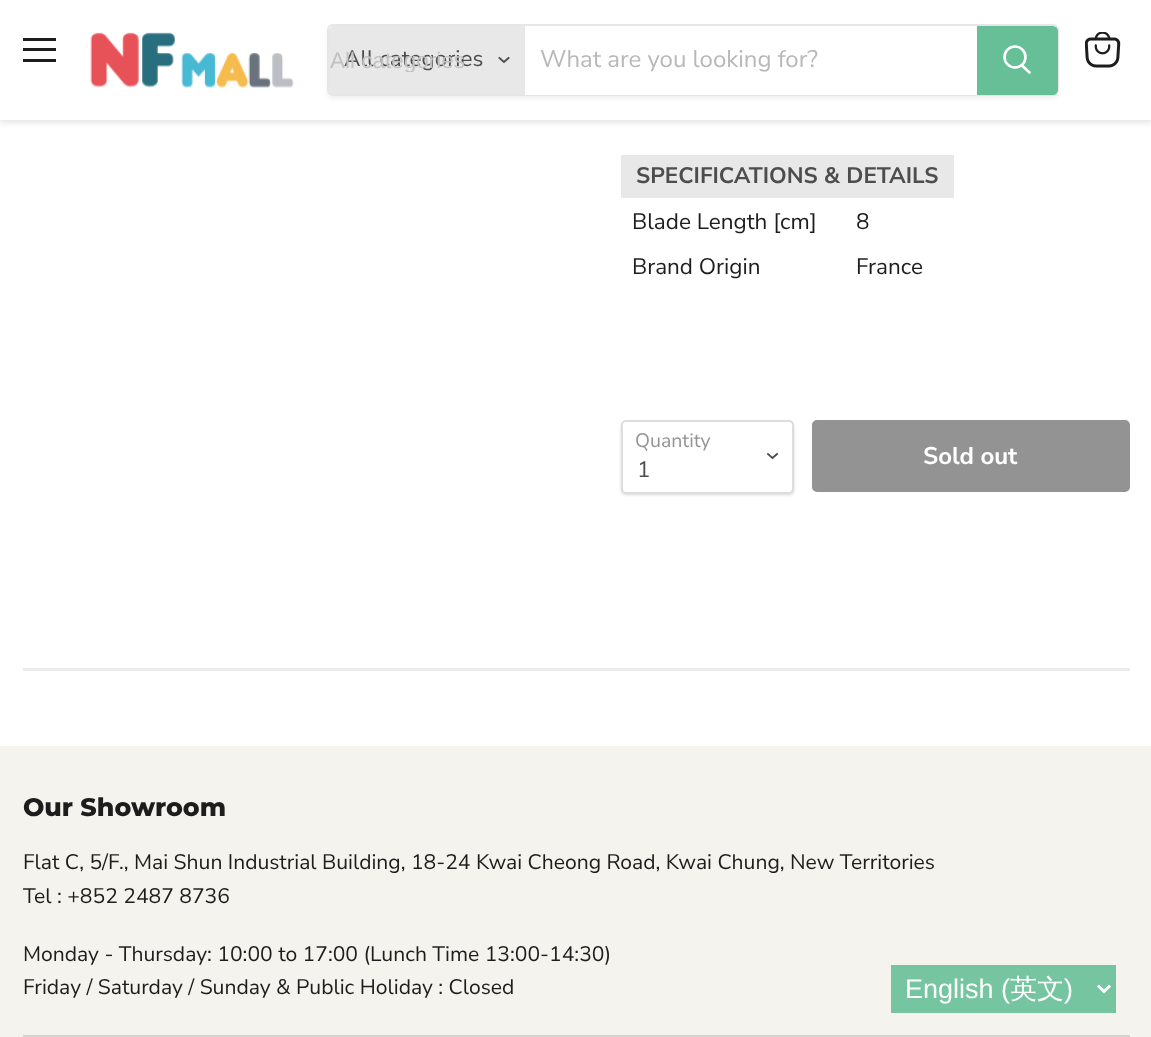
<?xml version="1.0" encoding="UTF-8"?>
<svg xmlns="http://www.w3.org/2000/svg" xmlns:xlink="http://www.w3.org/1999/xlink" width="1151" height="1037">
  <defs>
    <clipPath id="clip1"><path d="M 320 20 h 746 v 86 h -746 z m 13 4 h 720 c 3.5 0 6 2.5 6 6 v 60 c 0 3.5 -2.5 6 -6 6 h -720 c -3.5 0 -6 -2.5 -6 -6 v -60 c 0 -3.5 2.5 -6 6 -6 z" clip-rule="evenodd" /></clipPath>
    <clipPath id="clip2"><rect x="330" y="47" width="194" height="25" /></clipPath>
  </defs>
  <rect width="100%" height="100%" fill="#ffffff" />
  <rect y="2" width="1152" height="120" fill="#808080" fill-opacity="0.25" filter="blur(3px)" />
  <rect width="1151" height="120" fill="#ffffff" />
  <rect x="23" y="38" width="33" height="3" fill="#1d1d1d" />
  <rect x="23" y="48" width="33" height="3" fill="#1d1d1d" />
  <rect x="23" y="59" width="33" height="3" fill="#1d1d1d" />
  <image x="90" y="32" width="204" height="56" xlink:href="image1.png" />
  <g clip-path="url(#clip1)">
    <rect x="327" y="27" width="732" height="72" rx="6" fill="#808080" fill-opacity="0.11" filter="blur(2px)" />
  </g>
  <rect x="328" y="25" width="730" height="70" rx="5" fill="none" stroke="#808080" stroke-opacity="0.2" stroke-width="2" />
  <path d="M 334 26 h 191 v 69 h -191 c -3 0 -5 -2 -5 -5 v -59 c 0 -3 2 -5 5 -5 z" fill="#e8e8e8" />
  <path d="M 504 62 l 4.5 -4 m -4.5 4 l -4.5 -4" fill="none" stroke="#4d4d4d" stroke-width="1.9" stroke-linecap="square" />
  <rect x="525" y="94" width="452" height="1" fill="#ffffff" />
  <path d="M 978 27 h 75 c 2 0 4 2 4 4 v 59 c 0 2 -2 4 -4 4 h -75 z" fill="#66bf97" stroke="#66bf97" stroke-width="2" />
  <path d="M 1029.5 72.5 l -7.5 -7" fill="none" stroke="#ffffff" stroke-width="2.6" stroke-linecap="round" />
  <circle cx="1015" cy="57" r="10.5" fill="none" stroke="#ffffff" stroke-width="2.6" />
  <image x="1085" y="32" width="36" height="36" xlink:href="image2.png" />
  <rect x="621" y="155" width="333" height="43" fill="#e8e8e8" />
  <rect x="621" y="422" width="173" height="73" rx="5" fill="#000000" fill-opacity="0.15" filter="blur(1.5px)" />
  <rect x="622" y="421" width="171" height="72" rx="4" fill="#ffffff" stroke="#dddddd" stroke-width="2" />
  <path d="M 772.5 458 l 4.5 -4 m -4.5 4 l -4.5 -4" fill="none" stroke="#4d4d4d" stroke-width="1.9" stroke-linecap="square" />
  <rect x="813" y="421" width="316" height="70" rx="4" fill="#939393" stroke="#939393" stroke-width="2" />
  <rect x="23" y="668" width="1107" height="3" fill="#808080" fill-opacity="0.16" />
  <rect y="746" width="1151" height="291" fill="#f5f3ed" />
  <rect x="23" y="1035" width="1107" height="2" fill="#d5d3ce" />
  <rect x="891" y="965" width="225" height="48" fill="#75c5a1" />
  <path d="M 1098 985.5 l 6 6 l 6 -6" fill="none" stroke="#ffffff" stroke-width="3" />
  <text x="344" y="66" style="font-family: Nunito Sans; font-size: 22.5px; fill: #4d4d4d">All categories</text>
  <g clip-path="url(#clip2)">
    <text x="330" y="68" style="font-family: Liberation Sans; font-size: 22.5px; fill: #c2c2c2">All categories</text>
  </g>
  <text x="540" y="67" style="font-family: Nunito Sans; font-size: 24px; fill: #b8b8b8">What are you looking for?</text>
  <text x="636" y="183" style="font-family: Nunito Sans; font-size: 22.5px; font-weight: bold; fill: #4d4d4d">SPECIFICATIONS &amp; DETAILS</text>
  <text x="632" y="229" style="font-family: Nunito Sans; font-size: 22.5px; fill: #1d1d1d">Blade Length [cm]</text>
  <text x="856" y="229" style="font-family: Nunito Sans; font-size: 22.5px; fill: #1d1d1d">8</text>
  <text x="632" y="274" style="font-family: Nunito Sans; font-size: 22.5px; fill: #1d1d1d">Brand Origin</text>
  <text x="856" y="274" style="font-family: Nunito Sans; font-size: 22.5px; fill: #1d1d1d">France</text>
  <text x="635" y="447" style="font-family: Nunito Sans; font-size: 19.5px; fill: #949494">Quantity</text>
  <text x="637" y="477" style="font-family: Nunito Sans; font-size: 22.5px; fill: #4d4d4d">1</text>
  <text x="923" y="464" style="font-family: Nunito Sans; font-size: 24px; font-weight: bold; fill: #ffffff">Sold out</text>
  <text x="23" y="816" style="font-family: Montserrat; font-size: 25.25px; font-weight: 800; fill: #1d1d1d">Our Showroom</text>
  <text x="23" y="869" style="font-family: Nunito Sans; font-size: 21.1px; fill: #1d1d1d">Flat C, 5/F., Mai Shun Industrial Building, 18-24 Kwai Cheong Road, Kwai Chung, New Territories</text>
  <text x="23" y="903" style="font-family: Nunito Sans; font-size: 21.1px; fill: #1d1d1d">Tel : +852 2487 8736</text>
  <text x="23" y="961" style="font-family: Nunito Sans; font-size: 21.1px; fill: #1d1d1d">Monday - Thursday: 10:00 to 17:00 (Lunch Time 13:00-14:30)</text>
  <text x="23" y="994" style="font-family: Nunito Sans; font-size: 21.1px; fill: #1d1d1d">Friday / Saturday / Sunday &amp; Public Holiday : Closed</text>
  <text x="905" y="998" style="font-family: Liberation Sans; font-size: 27px; fill: #ffffff">English (</text>
  <text x="1010" y="998" style="font-family: WenQuanYi Zen Hei; font-size: 27px; font-weight: 500; fill: #ffffff">英文</text>
  <text x="1064" y="998" style="font-family: Liberation Sans; font-size: 27px; fill: #ffffff">)</text>
</svg>
